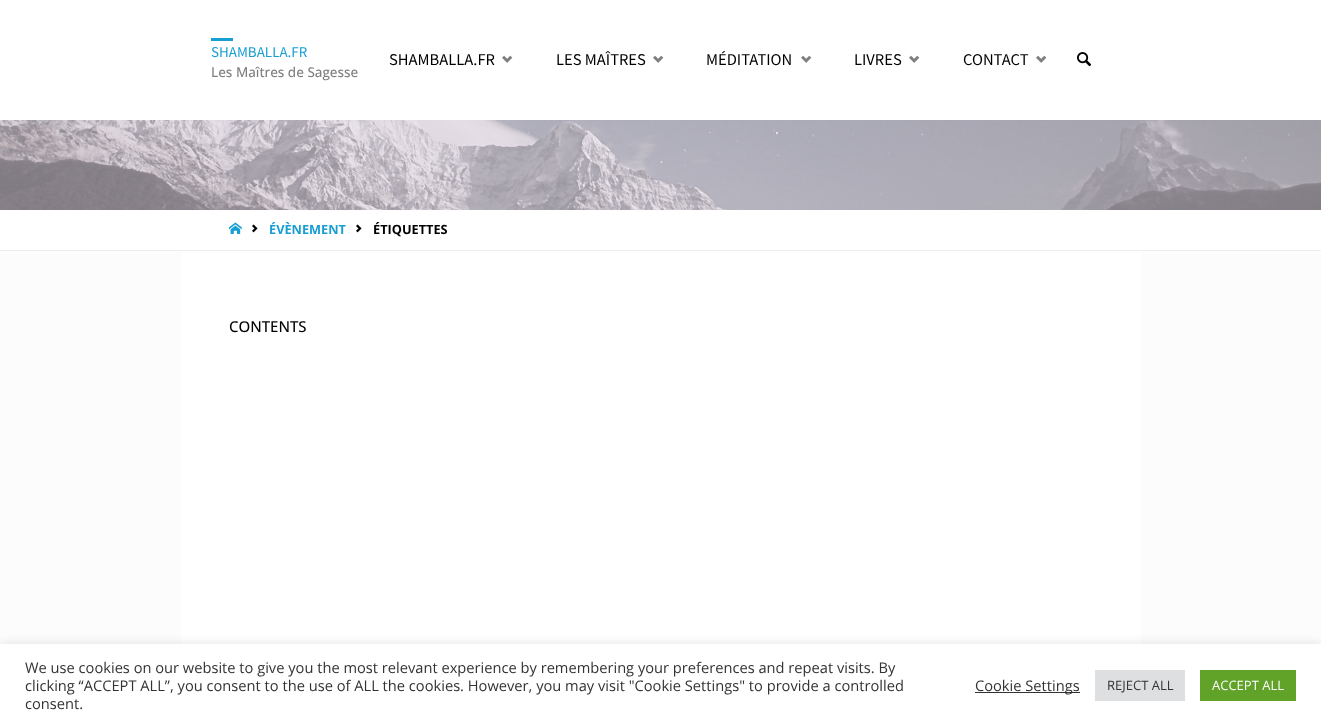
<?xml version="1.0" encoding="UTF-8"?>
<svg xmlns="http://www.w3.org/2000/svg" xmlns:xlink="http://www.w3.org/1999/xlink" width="1321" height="726">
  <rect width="100%" height="100%" fill="#fcfcfc" />
  <rect width="1321" height="120" fill="#ffffff" />
  <rect x="211" y="38" width="22" height="3" fill="#179ed3" />
  <image x="502" y="55" width="11" height="8" xlink:href="image1.png" />
  <image x="653" y="55" width="11" height="8" xlink:href="image1.png" />
  <image x="801" y="55" width="11" height="8" xlink:href="image1.png" />
  <image x="909" y="55" width="11" height="8" xlink:href="image1.png" />
  <image x="1036" y="55" width="11" height="8" xlink:href="image1.png" />
  <image x="1077" y="52" width="15" height="15" xlink:href="image2.png" />
  <image x="0" y="120" width="1321" height="90" xlink:href="image3.png" />
  <rect y="210" width="1321" height="40" fill="#ffffff" />
  <rect y="250" width="1321" height="1" fill="#eeeeee" />
  <image x="229" y="222" width="13" height="12" xlink:href="image4.png" />
  <image x="252" y="224" width="6" height="9" xlink:href="image5.png" />
  <image x="356" y="224" width="6" height="9" xlink:href="image5.png" />
  <rect x="181" y="251" width="960" height="393" fill="#ffffff" />
  <rect y="643" width="1321" height="82" fill="#acabab" fill-opacity="0.3" filter="blur(5px)" />
  <rect y="644" width="1321" height="82" fill="#ffffff" />
  <rect x="975" y="692" width="105" height="1" fill="#333333" />
  <rect x="1095" y="670" width="90" height="31" fill="#dedfe0" />
  <rect x="1200" y="670" width="96" height="31" fill="#61a229" />
  <text x="211" y="57" style="font-family: Source Sans Pro; font-size: 15px; fill: #179ed3">SHAMBALLA.FR</text>
  <text x="211" y="77" style="font-family: Open Sans; font-size: 13.5px; font-weight: 500; fill: #808080">Les Maîtres de Sagesse</text>
  <text x="389" y="65" style="font-family: Source Sans Pro; font-size: 16.5px; fill: #000000">SHAMBALLA.FR</text>
  <text x="556" y="65" style="font-family: Source Sans Pro; font-size: 16.5px; fill: #000000">LES MAÎTRES</text>
  <text x="706" y="65" style="font-family: Source Sans Pro; font-size: 16.5px; fill: #000000">MÉDITATION</text>
  <text x="854" y="65" style="font-family: Source Sans Pro; font-size: 16.5px; fill: #000000">LIVRES</text>
  <text x="963" y="65" style="font-family: Source Sans Pro; font-size: 16.5px; fill: #000000">CONTACT</text>
  <text x="269" y="234" style="font-family: Open Sans; font-size: 12.75px; font-weight: bold; fill: #179ed3">ÉVÈNEMENT</text>
  <text x="373" y="234" style="font-family: Open Sans; font-size: 12.75px; font-weight: bold; fill: #000000">ÉTIQUETTES</text>
  <text x="229" y="332" style="font-family: Open Sans; font-size: 15px; font-weight: 500; fill: #000000">CONTENTS</text>
  <text x="25" y="673" style="font-family: Open Sans; font-size: 14.67px; fill: #333333">We use cookies on our website to give you the most relevant experience by remembering your preferences and repeat visits. By</text>
  <text x="25" y="691" style="font-family: Open Sans; font-size: 14.67px; fill: #333333">clicking “ACCEPT ALL”, you consent to the use of ALL the cookies. However, you may visit "Cookie Settings" to provide a controlled</text>
  <text x="25" y="709" style="font-family: Open Sans; font-size: 14.67px; fill: #333333">consent.</text>
  <text x="975" y="691" style="font-family: Open Sans; font-size: 14.67px; fill: #333333">Cookie Settings</text>
  <text x="1107" y="690" style="font-family: Open Sans; font-size: 13px; fill: #333333">REJECT ALL</text>
  <text x="1212" y="690" style="font-family: Open Sans; font-size: 13px; fill: #ffffff">ACCEPT ALL</text>
</svg>
